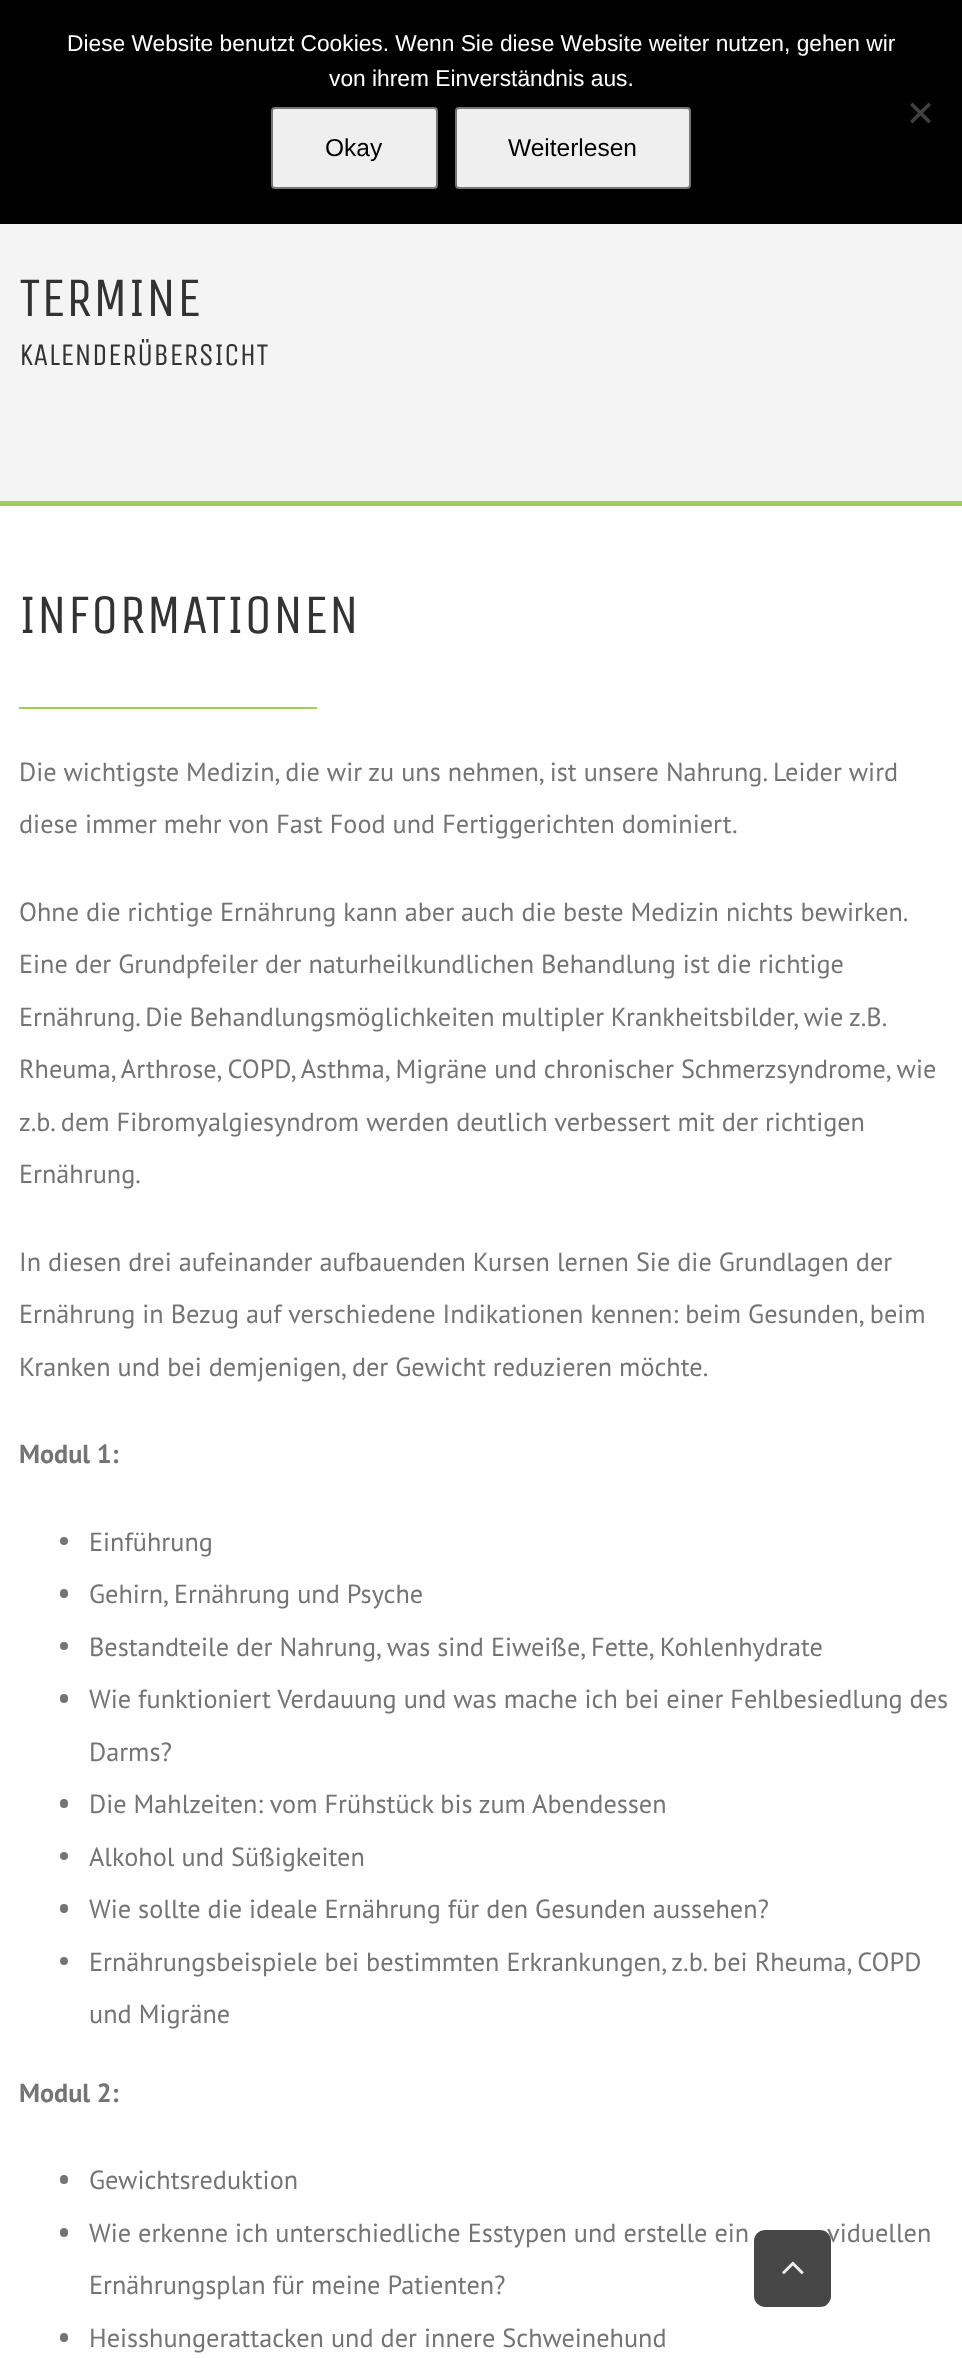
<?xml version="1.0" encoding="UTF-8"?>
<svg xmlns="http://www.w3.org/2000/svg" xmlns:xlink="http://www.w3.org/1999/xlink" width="962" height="2358">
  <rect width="100%" height="100%" fill="#ffffff" />
  <rect width="962" height="224" fill="#000000" />
  <path d="M 928.5 102.5 l 2.5 2.5 l -18.5 18.5 l -2.5 -2.5 z" fill="#404040" />
  <path d="M 910 105 l 2.5 -2.5 l 18.5 18.5 l -2.5 2.5 z" fill="#404040" />
  <rect x="272" y="108" width="165" height="80" rx="3" fill="#efefef" stroke="#767676" stroke-width="2" />
  <rect x="456" y="108" width="234" height="80" rx="3" fill="#efefef" stroke="#767676" stroke-width="2" />
  <rect y="224" width="962" height="277" fill="#f4f4f4" />
  <rect y="501" width="962" height="5" fill="#a0ce4e" />
  <rect x="19" y="707" width="298" height="2" fill="#a0ce4e" />
  <circle cx="64" cy="1541" r="4" fill="#747474" />
  <rect x="60" y="1589" width="8" height="9" rx="4" fill="#747474" />
  <circle cx="64" cy="1646" r="4" fill="#747474" />
  <rect x="60" y="1694" width="8" height="9" rx="4" fill="#747474" />
  <rect x="60" y="1799" width="8" height="9" rx="4" fill="#747474" />
  <circle cx="64" cy="1856" r="4" fill="#747474" />
  <rect x="60" y="1904" width="8" height="9" rx="4" fill="#747474" />
  <circle cx="64" cy="1961" r="4" fill="#747474" />
  <rect x="60" y="2175" width="8" height="9" rx="4" fill="#747474" />
  <rect x="60" y="2228" width="8" height="9" rx="4" fill="#747474" />
  <rect x="60" y="2333" width="8" height="9" rx="4" fill="#747474" />
  <text x="67" y="51" style="font-family: Liberation Sans; font-size: 22.75px; fill: #ffffff">Diese Website benutzt Cookies. Wenn Sie diese Website weiter nutzen, gehen wir</text>
  <text x="329" y="86" style="font-family: Liberation Sans; font-size: 22.75px; fill: #ffffff">von ihrem Einverständnis aus.</text>
  <text x="325" y="156" style="font-family: Liberation Sans; font-size: 24.5px; fill: #000000">Okay</text>
  <text x="508" y="156" style="font-family: Liberation Sans; font-size: 24.5px; fill: #000000">Weiterlesen</text>
  <text x="19" y="316" style="font-family: Unica One; font-size: 55.75px; fill: #333333">TERMINE</text>
  <text x="19" y="365" style="font-family: Unica One; font-size: 31.5px; fill: #333333">KALENDERÜBERSICHT</text>
  <text x="19" y="633" style="font-family: Unica One; font-size: 55.75px; fill: #333333">INFORMATIONEN</text>
  <text x="19" y="781" style="font-family: PT Sans; font-size: 26.25px; fill: #747474">Die wichtigste Medizin, die wir zu uns nehmen, ist unsere Nahrung. Leider wird</text>
  <text x="19" y="833" style="font-family: PT Sans; font-size: 26.25px; fill: #747474">diese immer mehr von Fast Food und Fertiggerichten dominiert.</text>
  <text x="19" y="921" style="font-family: PT Sans; font-size: 26.25px; fill: #747474">Ohne die richtige Ernährung kann aber auch die beste Medizin nichts bewirken.</text>
  <text x="19" y="973" style="font-family: PT Sans; font-size: 26.25px; fill: #747474">Eine der Grundpfeiler der naturheilkundlichen Behandlung ist die richtige</text>
  <text x="19" y="1026" word-spacing="-0.5" style="font-family: PT Sans; font-size: 26.25px; fill: #747474">Ernährung. Die Behandlungsmöglichkeiten multipler Krankheitsbilder, wie z.B.</text>
  <text x="19" y="1078" style="font-family: PT Sans; font-size: 26.25px; fill: #747474">Rheuma, Arthrose, COPD, Asthma, Migräne und chronischer Schmerzsyndrome, wie</text>
  <text x="19" y="1131" style="font-family: PT Sans; font-size: 26.25px; fill: #747474">z.b. dem Fibromyalgiesyndrom werden deutlich verbessert mit der richtigen</text>
  <text x="19" y="1183" style="font-family: PT Sans; font-size: 26.25px; fill: #747474">Ernährung.</text>
  <text x="19" y="1271" style="font-family: PT Sans; font-size: 26.25px; fill: #747474">In diesen drei aufeinander aufbauenden Kursen lernen Sie die Grundlagen der</text>
  <text x="19" y="1323" style="font-family: PT Sans; font-size: 26.25px; fill: #747474">Ernährung in Bezug auf verschiedene Indikationen kennen: beim Gesunden, beim</text>
  <text x="19" y="1376" style="font-family: PT Sans; font-size: 26.25px; fill: #747474">Kranken und bei demjenigen, der Gewicht reduzieren möchte.</text>
  <text x="19" y="1463" style="font-family: PT Sans; font-size: 26.25px; font-weight: bold; fill: #747474">Modul 1:</text>
  <text x="89" y="1551" style="font-family: PT Sans; font-size: 26.25px; fill: #747474">Einführung</text>
  <text x="89" y="1603" style="font-family: PT Sans; font-size: 26.25px; fill: #747474">Gehirn, Ernährung und Psyche</text>
  <text x="89" y="1656" style="font-family: PT Sans; font-size: 26.25px; fill: #747474">Bestandteile der Nahrung, was sind Eiweiße, Fette, Kohlenhydrate</text>
  <text x="89" y="1708" style="font-family: PT Sans; font-size: 26.25px; fill: #747474">Wie funktioniert Verdauung und was mache ich bei einer Fehlbesiedlung des</text>
  <text x="89" y="1761" style="font-family: PT Sans; font-size: 26.25px; fill: #747474">Darms?</text>
  <text x="89" y="1813" style="font-family: PT Sans; font-size: 26.25px; fill: #747474">Die Mahlzeiten: vom Frühstück bis zum Abendessen</text>
  <text x="89" y="1866" style="font-family: PT Sans; font-size: 26.25px; fill: #747474">Alkohol und Süßigkeiten</text>
  <text x="89" y="1918" style="font-family: PT Sans; font-size: 26.25px; fill: #747474">Wie sollte die ideale Ernährung für den Gesunden aussehen?</text>
  <text x="89" y="1971" style="font-family: PT Sans; font-size: 26.25px; fill: #747474">Ernährungsbeispiele bei bestimmten Erkrankungen, z.b. bei Rheuma, COPD</text>
  <text x="89" y="2023" style="font-family: PT Sans; font-size: 26.25px; fill: #747474">und Migräne</text>
  <text x="19" y="2102" style="font-family: PT Sans; font-size: 26.25px; font-weight: bold; fill: #747474">Modul 2:</text>
  <text x="89" y="2189" style="font-family: PT Sans; font-size: 26.25px; fill: #747474">Gewichtsreduktion</text>
  <text x="89" y="2242" style="font-family: PT Sans; font-size: 26.25px; fill: #747474">Wie erkenne ich unterschiedliche Esstypen und erstelle ein</text>
  <text x="827" y="2242" style="font-family: PT Sans; font-size: 26.25px; fill: #747474">viduellen</text>
  <text x="89" y="2294" style="font-family: PT Sans; font-size: 26.25px; fill: #747474">Ernährungsplan für meine Patienten?</text>
  <text x="89" y="2347" style="font-family: PT Sans; font-size: 26.25px; fill: #747474">Heisshungerattacken und der innere Schweinehund</text>
  <rect x="754" y="2230" width="77" height="77" rx="11" fill="#333333" fill-opacity="0.9" />
  <image x="782" y="2261" width="22" height="14" xlink:href="image1.png" />
</svg>
